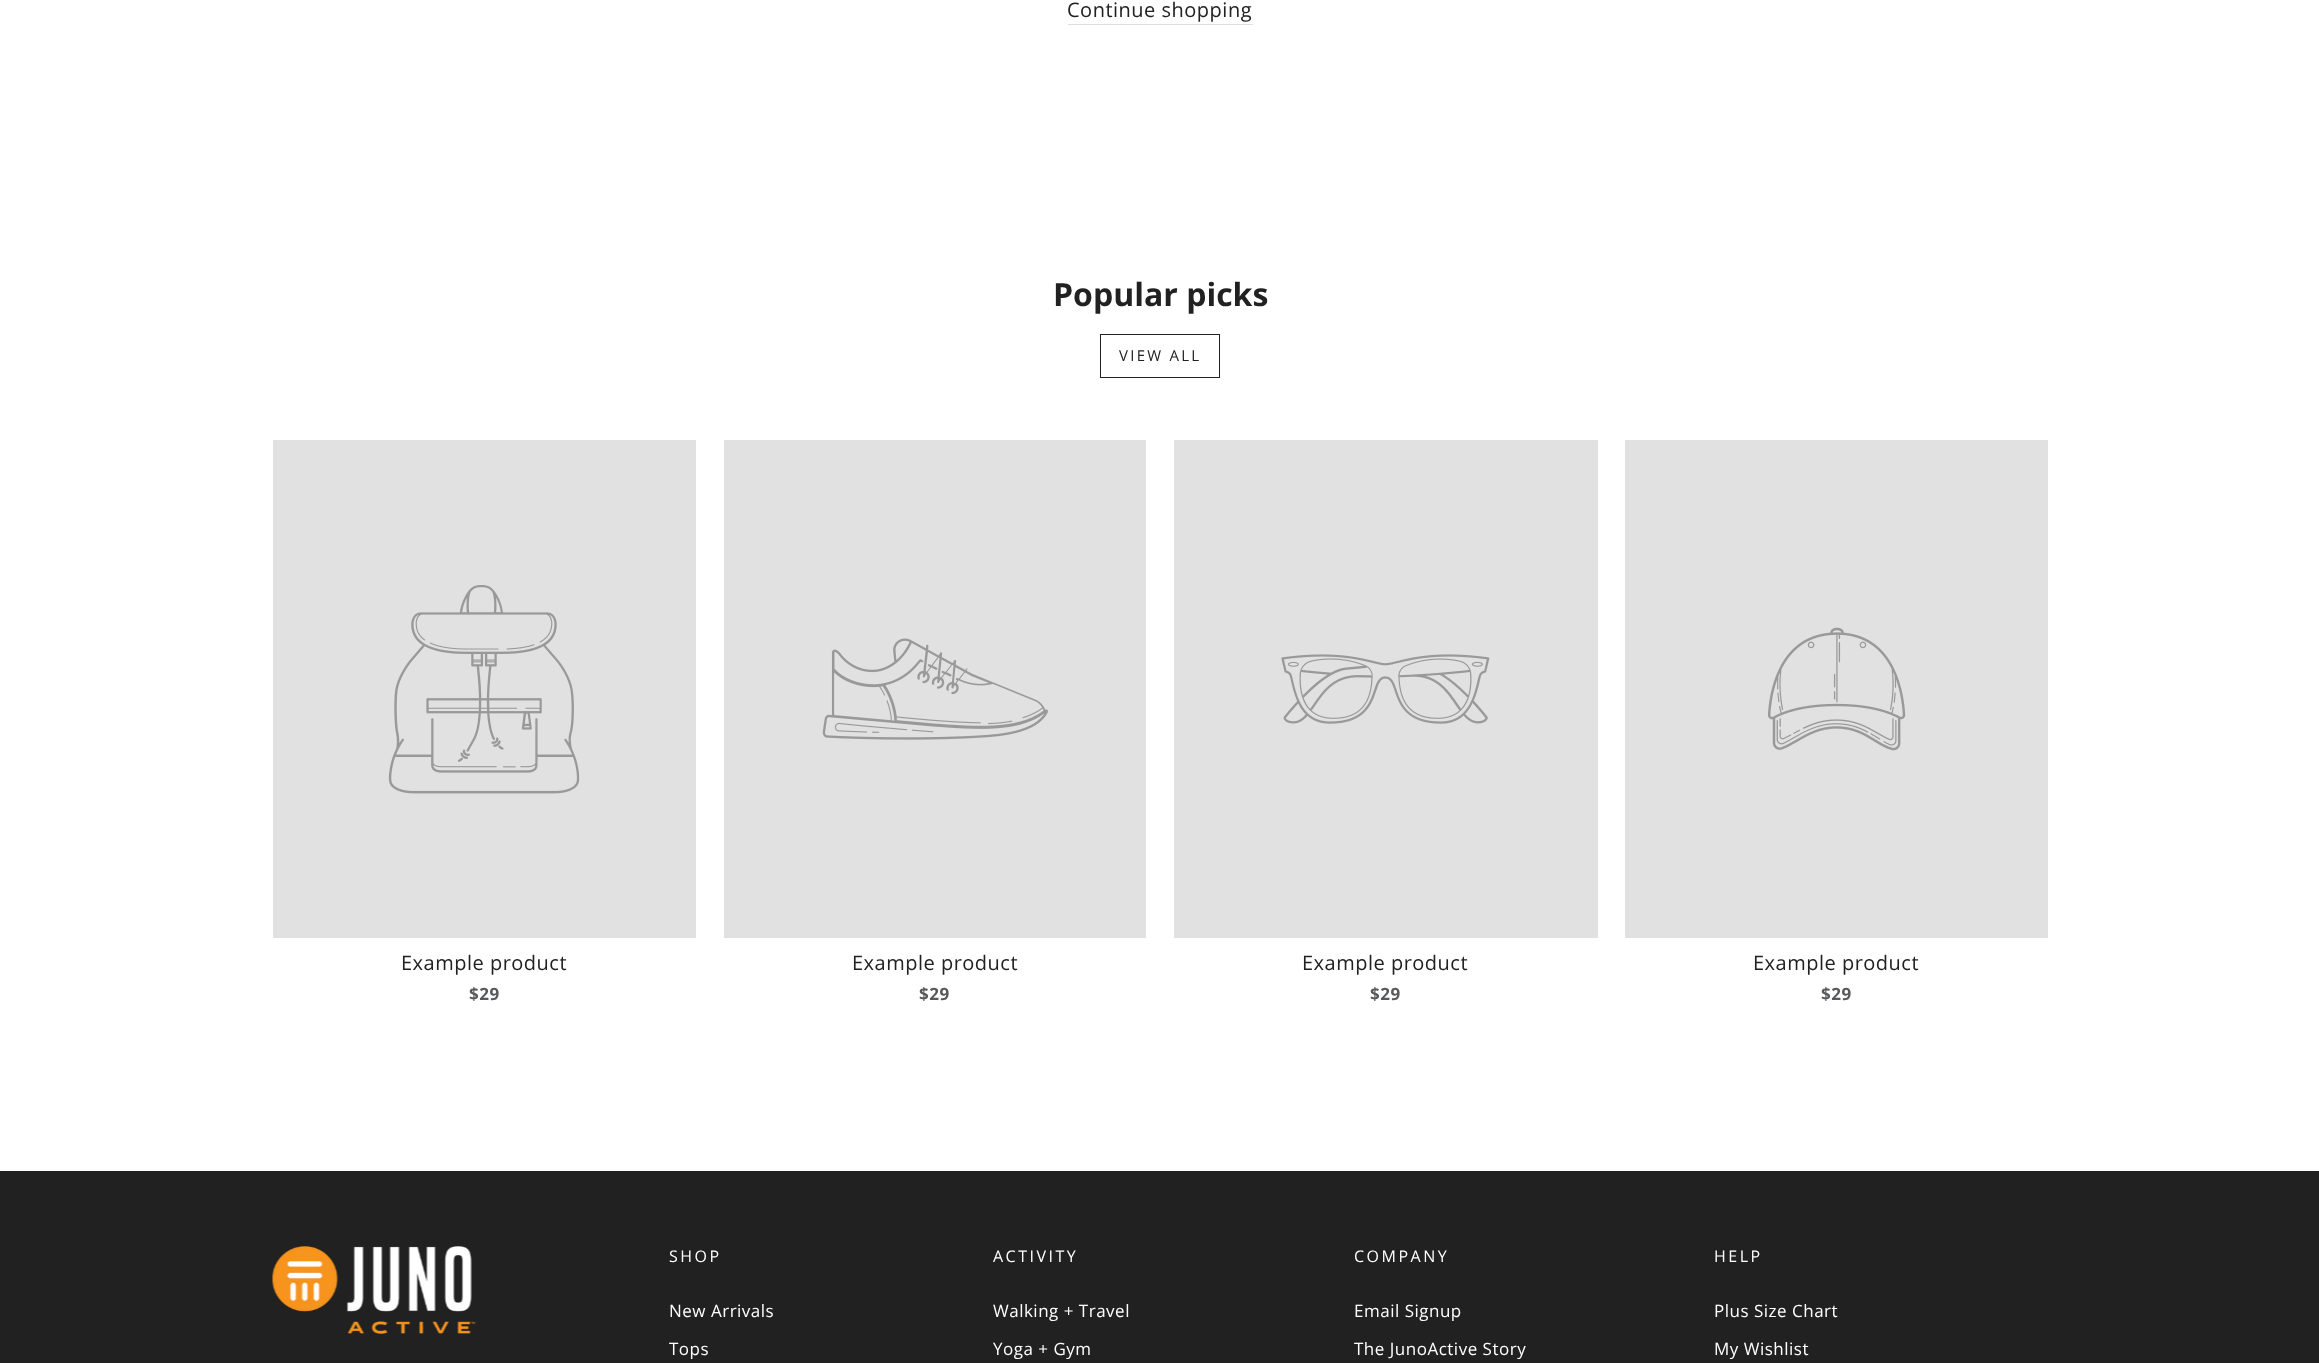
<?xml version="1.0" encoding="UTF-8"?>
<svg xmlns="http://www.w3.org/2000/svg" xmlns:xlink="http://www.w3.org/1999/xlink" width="2319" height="1363">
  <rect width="100%" height="100%" fill="#ffffff" />
  <rect x="1068" y="24" width="185" height="1" fill="#dedede" />
  <rect x="1100.5" y="334.5" width="119" height="43" fill="none" stroke="#212121" />
  <rect x="273" y="440" width="423" height="498" fill="#e1e1e1" />
  <image x="388" y="585" width="192" height="209" xlink:href="image1.png" />
  <rect x="724" y="440" width="422" height="498" fill="#e1e1e1" />
  <image x="822" y="638" width="226" height="102" xlink:href="image2.png" />
  <rect x="1174" y="440" width="424" height="498" fill="#e1e1e1" />
  <image x="1281" y="654" width="209" height="70" xlink:href="image3.png" />
  <rect x="1625" y="440" width="423" height="498" fill="#e1e1e1" />
  <image x="1768" y="627" width="138" height="124" xlink:href="image4.png" />
  <rect y="1171" width="2319" height="192" fill="#212121" />
  <image x="272" y="1246" width="204" height="88" xlink:href="image5.png" />
  <text x="1067" y="17" style="font-family: Open Sans; font-size: 20px; letter-spacing: 0.5px; fill: #212121">Continue shopping</text>
  <text x="1053" y="306" style="font-family: Open Sans; font-size: 32px; font-weight: bold; fill: #212121">Popular picks</text>
  <text x="1119" y="361" style="font-family: Open Sans; font-size: 15px; letter-spacing: 2.25px; fill: #212121">VIEW ALL</text>
  <text x="401" y="970" style="font-family: Open Sans; font-size: 20px; letter-spacing: 0.5px; fill: #212121">Example product</text>
  <text x="469" y="1000" style="font-family: Open Sans; font-size: 17px; font-weight: bold; letter-spacing: 0.5px; fill: #58595b">$29</text>
  <text x="852" y="970" style="font-family: Open Sans; font-size: 20px; letter-spacing: 0.5px; fill: #212121">Example product</text>
  <text x="919" y="1000" style="font-family: Open Sans; font-size: 17px; font-weight: bold; letter-spacing: 0.5px; fill: #58595b">$29</text>
  <text x="1302" y="970" style="font-family: Open Sans; font-size: 20px; letter-spacing: 0.5px; fill: #212121">Example product</text>
  <text x="1370" y="1000" style="font-family: Open Sans; font-size: 17px; font-weight: bold; letter-spacing: 0.5px; fill: #58595b">$29</text>
  <text x="1753" y="970" style="font-family: Open Sans; font-size: 20px; letter-spacing: 0.5px; fill: #212121">Example product</text>
  <text x="1821" y="1000" style="font-family: Open Sans; font-size: 17px; font-weight: bold; letter-spacing: 0.5px; fill: #58595b">$29</text>
  <text x="669" y="1262" style="font-family: Open Sans; font-size: 16px; letter-spacing: 2.5px; fill: #ffffff">SHOP</text>
  <text x="669" y="1317" style="font-family: Open Sans; font-size: 17px; letter-spacing: 0.5px; fill: #ffffff">New Arrivals</text>
  <text x="669" y="1355" style="font-family: Open Sans; font-size: 17px; letter-spacing: 0.5px; fill: #ffffff">Tops</text>
  <text x="993" y="1262" style="font-family: Open Sans; font-size: 16px; letter-spacing: 2.5px; fill: #ffffff">ACTIVITY</text>
  <text x="993" y="1317" style="font-family: Open Sans; font-size: 17px; letter-spacing: 0.5px; fill: #ffffff">Walking + Travel</text>
  <text x="993" y="1355" style="font-family: Open Sans; font-size: 17px; letter-spacing: 0.5px; fill: #ffffff">Yoga + Gym</text>
  <text x="1354" y="1262" style="font-family: Open Sans; font-size: 16px; letter-spacing: 2.5px; fill: #ffffff">COMPANY</text>
  <text x="1354" y="1317" style="font-family: Open Sans; font-size: 17px; letter-spacing: 0.5px; fill: #ffffff">Email Signup</text>
  <text x="1354" y="1355" style="font-family: Open Sans; font-size: 17px; letter-spacing: 0.5px; fill: #ffffff">The JunoActive Story</text>
  <text x="1714" y="1262" style="font-family: Open Sans; font-size: 16px; letter-spacing: 2.5px; fill: #ffffff">HELP</text>
  <text x="1714" y="1317" style="font-family: Open Sans; font-size: 17px; letter-spacing: 0.5px; fill: #ffffff">Plus Size Chart</text>
  <text x="1714" y="1355" style="font-family: Open Sans; font-size: 17px; letter-spacing: 0.5px; fill: #ffffff">My Wishlist</text>
</svg>
